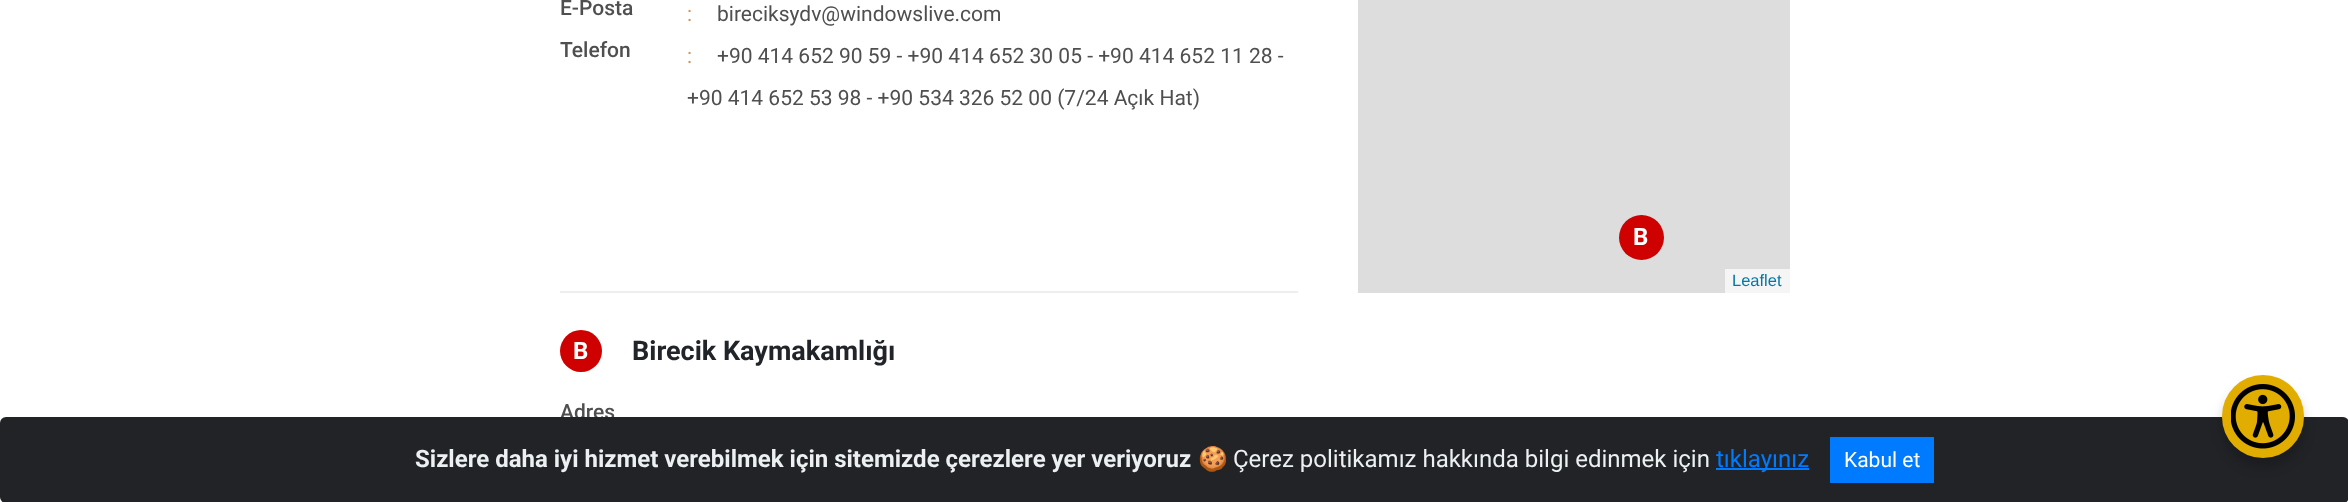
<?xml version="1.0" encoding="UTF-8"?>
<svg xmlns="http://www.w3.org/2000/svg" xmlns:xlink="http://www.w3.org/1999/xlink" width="2348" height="502">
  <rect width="100%" height="100%" fill="#ffffff" />
  <rect x="560" y="291" width="738" height="2" fill="#eeeeee" />
  <rect x="1358" width="432" height="293" fill="#dddddd" />
  <circle cx="1641.5" cy="237.5" r="22.5" fill="#ce0000" />
  <rect x="1725" y="269" width="65" height="24" fill="#f5f5f5" />
  <circle cx="581" cy="351" r="21" fill="#ce0000" />
  <text x="560" y="15" style="font-family: Roboto; font-size: 21px; font-weight: 500; fill: #4f4f4f">E-Posta</text>
  <text x="687" y="21" style="font-family: Roboto; font-size: 21px; fill: #d2935b">:</text>
  <text x="717" y="21" style="font-family: Roboto; font-size: 21px; fill: #4f4f4f">bireciksydv@windowslive.com</text>
  <text x="560" y="57" style="font-family: Roboto; font-size: 21px; font-weight: 500; fill: #4f4f4f">Telefon</text>
  <text x="687" y="63" style="font-family: Roboto; font-size: 21px; fill: #d2935b">:</text>
  <text x="717" y="63" style="font-family: Roboto; font-size: 21px; fill: #4f4f4f">+90 414 652 90 59 - +90 414 652 30 05 - +90 414 652 11 28 -</text>
  <text x="687" y="105" style="font-family: Roboto; font-size: 21px; fill: #4f4f4f">+90 414 652 53 98 - +90 534 326 52 00 (7/24 Açık Hat)</text>
  <text x="1633" y="245" style="font-family: Roboto; font-size: 24px; font-weight: bold; fill: #ffffff">B</text>
  <text x="1732" y="286" style="font-family: Liberation Sans; font-size: 16.5px; fill: #0078a8">Leaflet</text>
  <text x="573" y="359" style="font-family: Roboto; font-size: 24px; font-weight: bold; fill: #ffffff">B</text>
  <text x="632" y="360" style="font-family: Roboto; font-size: 27px; font-weight: bold; fill: #212529">Birecik Kaymakamlığı</text>
  <text x="560" y="419" style="font-family: Roboto; font-size: 21px; font-weight: 500; fill: #4f4f4f">Adres</text>
  <rect y="417" width="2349" height="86" rx="6" fill="#212327" />
  <rect x="2222" y="384" width="82" height="83" rx="41" fill="#000000" fill-opacity="0.2" filter="blur(6px)" />
  <rect x="2222" y="375" width="82" height="83" rx="41" fill="#e1ad01" />
  <image x="2231" y="384" width="64" height="65" xlink:href="image1.png" />
  <text x="415" y="467" style="font-family: Roboto; font-size: 24px; font-weight: bold; fill: #ecf0f1">Sizlere daha iyi hizmet verebilmek için sitemizde çerezlere yer veriyoruz</text>
  <text x="1198" y="467" style="font-family: Noto Color Emoji; font-size: 24px; fill: #ecf0f1">🍪</text>
  <text x="1233" y="467" style="font-family: Roboto; font-size: 24px; fill: #ecf0f1">Çerez politikamız hakkında bilgi edinmek için</text>
  <rect x="1716" y="468" width="93" height="2" fill="#007bff" />
  <text x="1716" y="467" style="font-family: Roboto; font-size: 24px; fill: #007bff">tıklayınız</text>
  <rect x="1830" y="437" width="104" height="46" fill="#007bff" />
  <text x="1844" y="467" style="font-family: Roboto; font-size: 21px; fill: #ffffff">Kabul et</text>
</svg>
